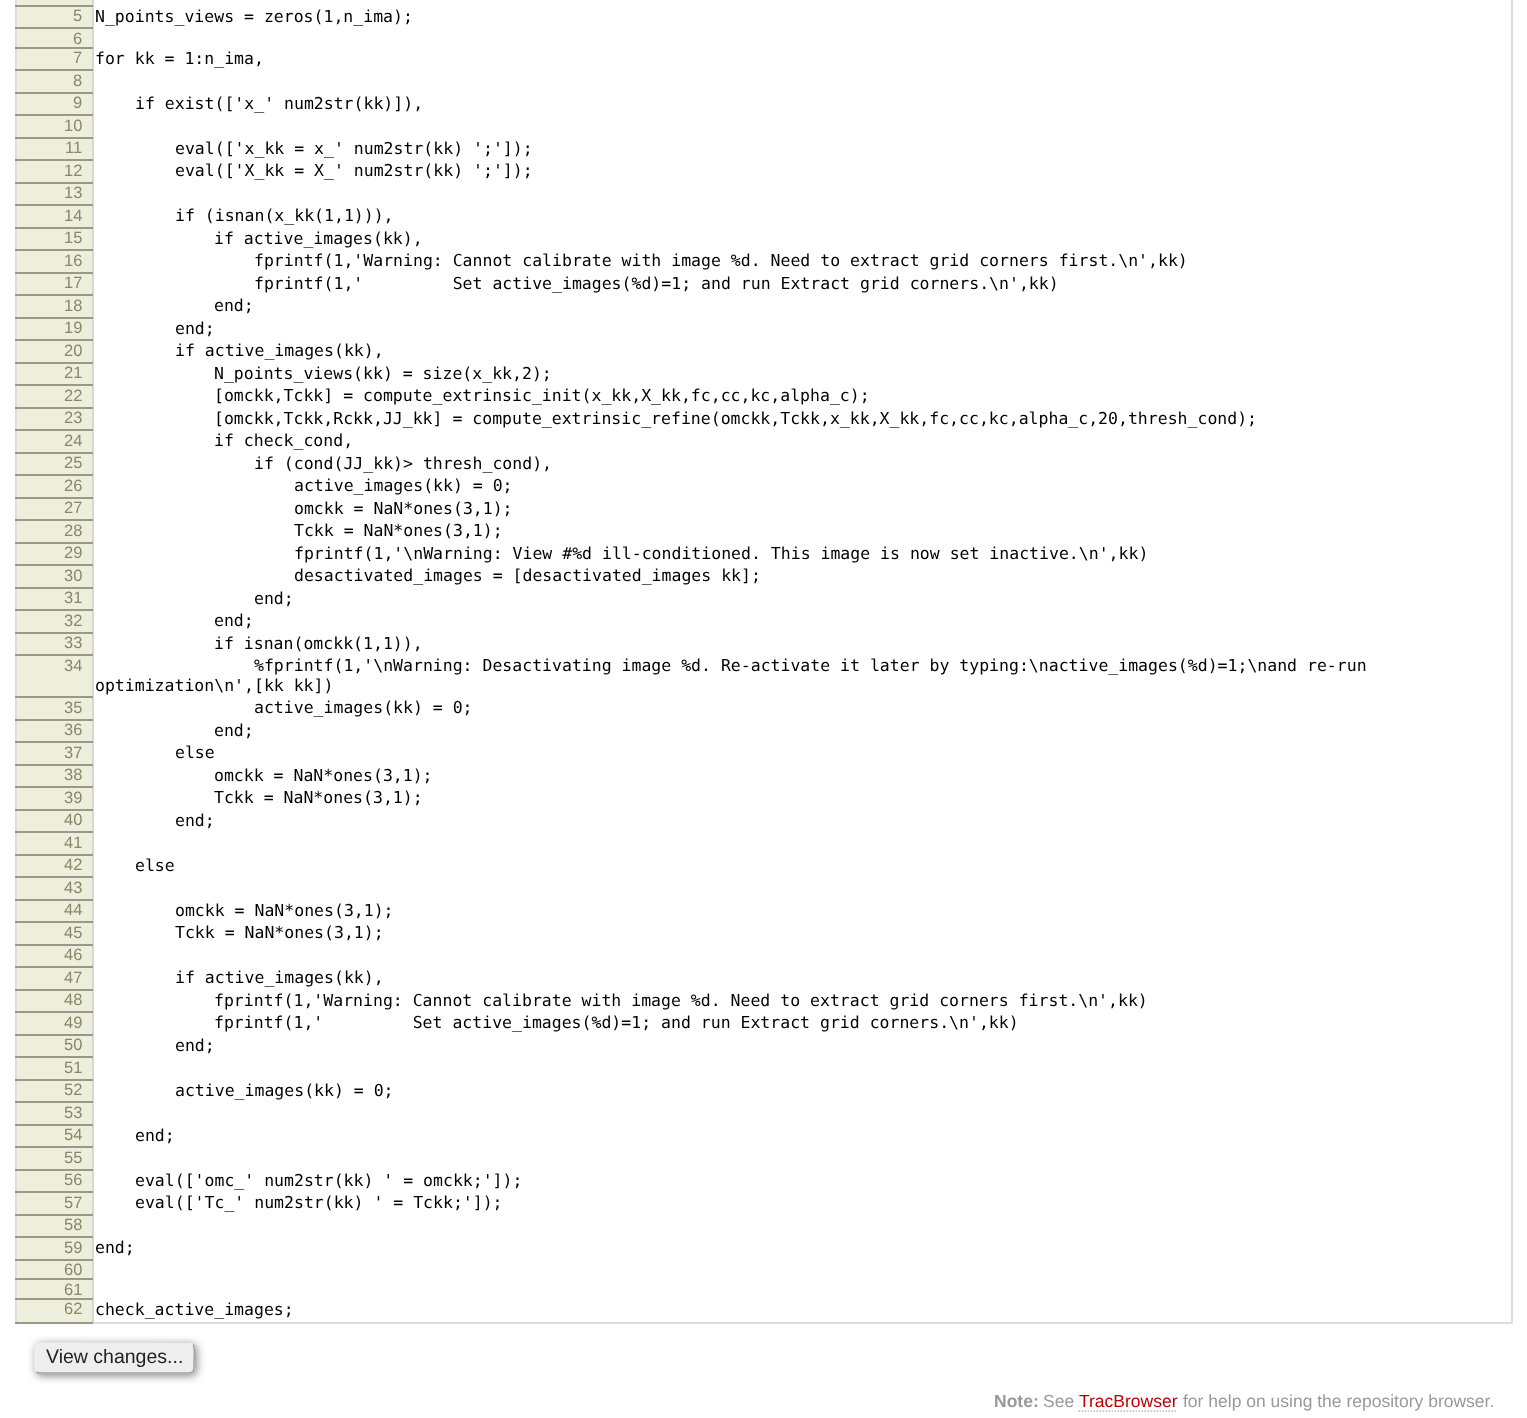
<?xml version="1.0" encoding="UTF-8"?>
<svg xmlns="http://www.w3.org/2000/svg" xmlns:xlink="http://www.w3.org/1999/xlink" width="1527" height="1418">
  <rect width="100%" height="100%" fill="#ffffff" />
  <rect x="1511" width="2" height="1323" fill="#dddddd" />
  <rect x="93" y="1322" width="1419" height="2" fill="#dddddd" />
  <rect x="15" width="2" height="1323" fill="#dddddd" />
  <rect x="17" width="75" height="5" fill="#eeeedd" />
  <rect x="92" width="2" height="1323" fill="#d7d7d7" />
  <rect x="15" y="5" width="78" height="2" fill="#999988" />
  <rect x="17" y="7" width="75" height="20" fill="#eeeedd" />
  <rect x="15" y="27" width="78" height="2" fill="#999988" />
  <rect x="17" y="29" width="75" height="18" fill="#eeeedd" />
  <rect x="15" y="47" width="78" height="2" fill="#999988" />
  <rect x="17" y="49" width="75" height="20" fill="#eeeedd" />
  <rect x="15" y="69" width="78" height="2" fill="#999988" />
  <rect x="17" y="71" width="75" height="21" fill="#eeeedd" />
  <rect x="15" y="92" width="78" height="2" fill="#999988" />
  <rect x="17" y="94" width="75" height="20" fill="#eeeedd" />
  <rect x="15" y="114" width="78" height="2" fill="#999988" />
  <rect x="17" y="116" width="75" height="21" fill="#eeeedd" />
  <rect x="15" y="137" width="78" height="2" fill="#999988" />
  <rect x="17" y="139" width="75" height="20" fill="#eeeedd" />
  <rect x="15" y="159" width="78" height="2" fill="#999988" />
  <rect x="17" y="161" width="75" height="21" fill="#eeeedd" />
  <rect x="15" y="182" width="78" height="2" fill="#999988" />
  <rect x="17" y="184" width="75" height="20" fill="#eeeedd" />
  <rect x="15" y="204" width="78" height="2" fill="#999988" />
  <rect x="17" y="206" width="75" height="21" fill="#eeeedd" />
  <rect x="15" y="227" width="78" height="2" fill="#999988" />
  <rect x="17" y="229" width="75" height="20" fill="#eeeedd" />
  <rect x="15" y="249" width="78" height="2" fill="#999988" />
  <rect x="17" y="251" width="75" height="21" fill="#eeeedd" />
  <rect x="15" y="272" width="78" height="2" fill="#999988" />
  <rect x="17" y="274" width="75" height="20" fill="#eeeedd" />
  <rect x="15" y="294" width="78" height="2" fill="#999988" />
  <rect x="17" y="296" width="75" height="21" fill="#eeeedd" />
  <rect x="15" y="317" width="78" height="2" fill="#999988" />
  <rect x="17" y="319" width="75" height="20" fill="#eeeedd" />
  <rect x="15" y="339" width="78" height="2" fill="#999988" />
  <rect x="17" y="341" width="75" height="21" fill="#eeeedd" />
  <rect x="15" y="362" width="78" height="2" fill="#999988" />
  <rect x="17" y="364" width="75" height="20" fill="#eeeedd" />
  <rect x="15" y="384" width="78" height="2" fill="#999988" />
  <rect x="17" y="386" width="75" height="21" fill="#eeeedd" />
  <rect x="15" y="407" width="78" height="2" fill="#999988" />
  <rect x="17" y="409" width="75" height="20" fill="#eeeedd" />
  <rect x="15" y="429" width="78" height="2" fill="#999988" />
  <rect x="17" y="431" width="75" height="21" fill="#eeeedd" />
  <rect x="15" y="452" width="78" height="2" fill="#999988" />
  <rect x="17" y="454" width="75" height="20" fill="#eeeedd" />
  <rect x="15" y="474" width="78" height="2" fill="#999988" />
  <rect x="17" y="476" width="75" height="21" fill="#eeeedd" />
  <rect x="15" y="497" width="78" height="2" fill="#999988" />
  <rect x="17" y="499" width="75" height="20" fill="#eeeedd" />
  <rect x="15" y="519" width="78" height="2" fill="#999988" />
  <rect x="17" y="521" width="75" height="21" fill="#eeeedd" />
  <rect x="15" y="542" width="78" height="2" fill="#999988" />
  <rect x="17" y="544" width="75" height="20" fill="#eeeedd" />
  <rect x="15" y="564" width="78" height="2" fill="#999988" />
  <rect x="17" y="566" width="75" height="21" fill="#eeeedd" />
  <rect x="15" y="587" width="78" height="2" fill="#999988" />
  <rect x="17" y="589" width="75" height="20" fill="#eeeedd" />
  <rect x="15" y="609" width="78" height="2" fill="#999988" />
  <rect x="17" y="611" width="75" height="21" fill="#eeeedd" />
  <rect x="15" y="632" width="78" height="2" fill="#999988" />
  <rect x="17" y="634" width="75" height="20" fill="#eeeedd" />
  <rect x="15" y="654" width="78" height="2" fill="#999988" />
  <rect x="17" y="656" width="75" height="40" fill="#eeeedd" />
  <rect x="15" y="696" width="78" height="2" fill="#999988" />
  <rect x="17" y="698" width="75" height="21" fill="#eeeedd" />
  <rect x="15" y="719" width="78" height="2" fill="#999988" />
  <rect x="17" y="721" width="75" height="20" fill="#eeeedd" />
  <rect x="15" y="741" width="78" height="2" fill="#999988" />
  <rect x="17" y="743" width="75" height="21" fill="#eeeedd" />
  <rect x="15" y="764" width="78" height="2" fill="#999988" />
  <rect x="17" y="766" width="75" height="20" fill="#eeeedd" />
  <rect x="15" y="786" width="78" height="2" fill="#999988" />
  <rect x="17" y="788" width="75" height="21" fill="#eeeedd" />
  <rect x="15" y="809" width="78" height="2" fill="#999988" />
  <rect x="17" y="811" width="75" height="20" fill="#eeeedd" />
  <rect x="15" y="831" width="78" height="2" fill="#999988" />
  <rect x="17" y="833" width="75" height="21" fill="#eeeedd" />
  <rect x="15" y="854" width="78" height="2" fill="#999988" />
  <rect x="17" y="856" width="75" height="20" fill="#eeeedd" />
  <rect x="15" y="876" width="78" height="2" fill="#999988" />
  <rect x="17" y="878" width="75" height="21" fill="#eeeedd" />
  <rect x="15" y="899" width="78" height="2" fill="#999988" />
  <rect x="17" y="901" width="75" height="20" fill="#eeeedd" />
  <rect x="15" y="921" width="78" height="2" fill="#999988" />
  <rect x="17" y="923" width="75" height="21" fill="#eeeedd" />
  <rect x="15" y="944" width="78" height="2" fill="#999988" />
  <rect x="17" y="946" width="75" height="20" fill="#eeeedd" />
  <rect x="15" y="966" width="78" height="2" fill="#999988" />
  <rect x="17" y="968" width="75" height="21" fill="#eeeedd" />
  <rect x="15" y="989" width="78" height="2" fill="#999988" />
  <rect x="17" y="991" width="75" height="20" fill="#eeeedd" />
  <rect x="15" y="1011" width="78" height="2" fill="#999988" />
  <rect x="17" y="1013" width="75" height="21" fill="#eeeedd" />
  <rect x="15" y="1034" width="78" height="2" fill="#999988" />
  <rect x="17" y="1036" width="75" height="20" fill="#eeeedd" />
  <rect x="15" y="1056" width="78" height="2" fill="#999988" />
  <rect x="17" y="1058" width="75" height="21" fill="#eeeedd" />
  <rect x="15" y="1079" width="78" height="2" fill="#999988" />
  <rect x="17" y="1081" width="75" height="20" fill="#eeeedd" />
  <rect x="15" y="1101" width="78" height="2" fill="#999988" />
  <rect x="17" y="1103" width="75" height="21" fill="#eeeedd" />
  <rect x="15" y="1124" width="78" height="2" fill="#999988" />
  <rect x="17" y="1126" width="75" height="20" fill="#eeeedd" />
  <rect x="15" y="1146" width="78" height="2" fill="#999988" />
  <rect x="17" y="1148" width="75" height="21" fill="#eeeedd" />
  <rect x="15" y="1169" width="78" height="2" fill="#999988" />
  <rect x="17" y="1171" width="75" height="20" fill="#eeeedd" />
  <rect x="15" y="1191" width="78" height="2" fill="#999988" />
  <rect x="17" y="1193" width="75" height="21" fill="#eeeedd" />
  <rect x="15" y="1214" width="78" height="2" fill="#999988" />
  <rect x="17" y="1216" width="75" height="20" fill="#eeeedd" />
  <rect x="15" y="1236" width="78" height="2" fill="#999988" />
  <rect x="17" y="1238" width="75" height="21" fill="#eeeedd" />
  <rect x="15" y="1259" width="78" height="2" fill="#999988" />
  <rect x="17" y="1261" width="75" height="17" fill="#eeeedd" />
  <rect x="15" y="1278" width="78" height="2" fill="#999988" />
  <rect x="17" y="1280" width="75" height="18" fill="#eeeedd" />
  <rect x="15" y="1298" width="78" height="2" fill="#999988" />
  <rect x="17" y="1300" width="75" height="22" fill="#eeeedd" />
  <rect x="15" y="1322" width="78" height="2" fill="#999988" />
  <rect x="36" y="1344" width="161" height="32" rx="6" fill="#888888" filter="blur(4px)" />
  <rect x="35" y="1343" width="160" height="31" rx="6" fill="#eeeeee" />
  <path d="M 193 1344.5 c 2.5 3 1 13.5 1 17 c 0 4 1.5 11.5 -5 11.5 h -150 l -2.5 -1" fill="none" stroke="#9f9f9f" stroke-width="1.5" />
  <path d="M 36.5 1372 c -2.5 -3 -1.5 -13.5 -1.5 -17 c 0 -4 -1 -11.5 5.5 -12 l 150 0.5 l 2.5 1" fill="none" stroke="#eeeeee" stroke-width="1.5" />
  <path d="M 1078.5 1411 h 99" fill="none" stroke="#bbbbbb" stroke-width="1.5" stroke-dasharray="1.5 1.5" />
  <text x="73" y="21" style="font-family: Liberation Sans; font-size: 16.5px; fill: #888866">5</text>
  <text x="95" y="22" style="font-family: DejaVu Sans Mono; font-size: 16.5px; fill: #000000">N_points_views = zeros(1,n_ima);</text>
  <text x="73" y="44" style="font-family: Liberation Sans; font-size: 16.5px; fill: #888866">6</text>
  <text x="73" y="63" style="font-family: Liberation Sans; font-size: 16.5px; fill: #888866">7</text>
  <text x="95" y="64" style="font-family: DejaVu Sans Mono; font-size: 16.5px; fill: #000000">for kk = 1:n_ima,</text>
  <text x="73" y="86" style="font-family: Liberation Sans; font-size: 16.5px; fill: #888866">8</text>
  <text x="73" y="108" style="font-family: Liberation Sans; font-size: 16.5px; fill: #888866">9</text>
  <text x="135" y="109" style="font-family: DejaVu Sans Mono; font-size: 16.5px; fill: #000000">if exist(['x_' num2str(kk)]),</text>
  <text x="64" y="131" style="font-family: Liberation Sans; font-size: 16.5px; fill: #888866">10</text>
  <text x="65" y="153" style="font-family: Liberation Sans; font-size: 16.5px; fill: #888866">11</text>
  <text x="175" y="154" style="font-family: DejaVu Sans Mono; font-size: 16.5px; fill: #000000">eval(['x_kk = x_' num2str(kk) ';']);</text>
  <text x="64" y="176" style="font-family: Liberation Sans; font-size: 16.5px; fill: #888866">12</text>
  <text x="175" y="176" style="font-family: DejaVu Sans Mono; font-size: 16.5px; fill: #000000">eval(['X_kk = X_' num2str(kk) ';']);</text>
  <text x="64" y="198" style="font-family: Liberation Sans; font-size: 16.5px; fill: #888866">13</text>
  <text x="64" y="221" style="font-family: Liberation Sans; font-size: 16.5px; fill: #888866">14</text>
  <text x="175" y="221" style="font-family: DejaVu Sans Mono; font-size: 16.5px; fill: #000000">if (isnan(x_kk(1,1))),</text>
  <text x="64" y="243" style="font-family: Liberation Sans; font-size: 16.5px; fill: #888866">15</text>
  <text x="214" y="244" style="font-family: DejaVu Sans Mono; font-size: 16.5px; fill: #000000">if active_images(kk),</text>
  <text x="64" y="266" style="font-family: Liberation Sans; font-size: 16.5px; fill: #888866">16</text>
  <text x="254" y="266" style="font-family: DejaVu Sans Mono; font-size: 16.5px; fill: #000000">fprintf(1,'Warning: Cannot calibrate with image %d. Need to extract grid corners first.\n',kk)</text>
  <text x="64" y="288" style="font-family: Liberation Sans; font-size: 16.5px; fill: #888866">17</text>
  <text x="254" y="289" style="font-family: DejaVu Sans Mono; font-size: 16.5px; fill: #000000" xml:space="preserve">fprintf(1,'         Set active_images(%d)=1; and run Extract grid corners.\n',kk)</text>
  <text x="64" y="311" style="font-family: Liberation Sans; font-size: 16.5px; fill: #888866">18</text>
  <text x="214" y="311" style="font-family: DejaVu Sans Mono; font-size: 16.5px; fill: #000000">end;</text>
  <text x="64" y="333" style="font-family: Liberation Sans; font-size: 16.5px; fill: #888866">19</text>
  <text x="175" y="334" style="font-family: DejaVu Sans Mono; font-size: 16.5px; fill: #000000">end;</text>
  <text x="64" y="356" style="font-family: Liberation Sans; font-size: 16.5px; fill: #888866">20</text>
  <text x="175" y="356" style="font-family: DejaVu Sans Mono; font-size: 16.5px; fill: #000000">if active_images(kk),</text>
  <text x="64" y="378" style="font-family: Liberation Sans; font-size: 16.5px; fill: #888866">21</text>
  <text x="214" y="379" style="font-family: DejaVu Sans Mono; font-size: 16.5px; fill: #000000">N_points_views(kk) = size(x_kk,2);</text>
  <text x="64" y="401" style="font-family: Liberation Sans; font-size: 16.5px; fill: #888866">22</text>
  <text x="214" y="401" style="font-family: DejaVu Sans Mono; font-size: 16.5px; fill: #000000">[omckk,Tckk] = compute_extrinsic_init(x_kk,X_kk,fc,cc,kc,alpha_c);</text>
  <text x="64" y="423" style="font-family: Liberation Sans; font-size: 16.5px; fill: #888866">23</text>
  <text x="214" y="424" style="font-family: DejaVu Sans Mono; font-size: 16.5px; fill: #000000">[omckk,Tckk,Rckk,JJ_kk] = compute_extrinsic_refine(omckk,Tckk,x_kk,X_kk,fc,cc,kc,alpha_c,20,thresh_cond);</text>
  <text x="64" y="446" style="font-family: Liberation Sans; font-size: 16.5px; fill: #888866">24</text>
  <text x="214" y="446" style="font-family: DejaVu Sans Mono; font-size: 16.5px; fill: #000000">if check_cond,</text>
  <text x="64" y="468" style="font-family: Liberation Sans; font-size: 16.5px; fill: #888866">25</text>
  <text x="254" y="469" style="font-family: DejaVu Sans Mono; font-size: 16.5px; fill: #000000">if (cond(JJ_kk)&gt; thresh_cond),</text>
  <text x="64" y="491" style="font-family: Liberation Sans; font-size: 16.5px; fill: #888866">26</text>
  <text x="294" y="491" style="font-family: DejaVu Sans Mono; font-size: 16.5px; fill: #000000">active_images(kk) = 0;</text>
  <text x="64" y="513" style="font-family: Liberation Sans; font-size: 16.5px; fill: #888866">27</text>
  <text x="294" y="514" style="font-family: DejaVu Sans Mono; font-size: 16.5px; fill: #000000">omckk = NaN*ones(3,1);</text>
  <text x="64" y="536" style="font-family: Liberation Sans; font-size: 16.5px; fill: #888866">28</text>
  <text x="294" y="536" style="font-family: DejaVu Sans Mono; font-size: 16.5px; fill: #000000">Tckk = NaN*ones(3,1);</text>
  <text x="64" y="558" style="font-family: Liberation Sans; font-size: 16.5px; fill: #888866">29</text>
  <text x="294" y="559" style="font-family: DejaVu Sans Mono; font-size: 16.5px; fill: #000000">fprintf(1,'\nWarning: View #%d ill-conditioned. This image is now set inactive.\n',kk)</text>
  <text x="64" y="581" style="font-family: Liberation Sans; font-size: 16.5px; fill: #888866">30</text>
  <text x="294" y="581" style="font-family: DejaVu Sans Mono; font-size: 16.5px; fill: #000000">desactivated_images = [desactivated_images kk];</text>
  <text x="64" y="603" style="font-family: Liberation Sans; font-size: 16.5px; fill: #888866">31</text>
  <text x="254" y="604" style="font-family: DejaVu Sans Mono; font-size: 16.5px; fill: #000000">end;</text>
  <text x="64" y="626" style="font-family: Liberation Sans; font-size: 16.5px; fill: #888866">32</text>
  <text x="214" y="626" style="font-family: DejaVu Sans Mono; font-size: 16.5px; fill: #000000">end;</text>
  <text x="64" y="648" style="font-family: Liberation Sans; font-size: 16.5px; fill: #888866">33</text>
  <text x="214" y="649" style="font-family: DejaVu Sans Mono; font-size: 16.5px; fill: #000000">if isnan(omckk(1,1)),</text>
  <text x="64" y="671" style="font-family: Liberation Sans; font-size: 16.5px; fill: #888866">34</text>
  <text x="254" y="671" style="font-family: DejaVu Sans Mono; font-size: 16.5px; fill: #000000">%fprintf(1,'\nWarning: Desactivating image %d. Re-activate it later by typing:\nactive_images(%d)=1;\nand re-run</text>
  <text x="95" y="691" style="font-family: DejaVu Sans Mono; font-size: 16.5px; fill: #000000">optimization\n',[kk kk])</text>
  <text x="64" y="713" style="font-family: Liberation Sans; font-size: 16.5px; fill: #888866">35</text>
  <text x="254" y="713" style="font-family: DejaVu Sans Mono; font-size: 16.5px; fill: #000000">active_images(kk) = 0;</text>
  <text x="64" y="735" style="font-family: Liberation Sans; font-size: 16.5px; fill: #888866">36</text>
  <text x="214" y="736" style="font-family: DejaVu Sans Mono; font-size: 16.5px; fill: #000000">end;</text>
  <text x="64" y="758" style="font-family: Liberation Sans; font-size: 16.5px; fill: #888866">37</text>
  <text x="175" y="758" style="font-family: DejaVu Sans Mono; font-size: 16.5px; fill: #000000">else</text>
  <text x="64" y="780" style="font-family: Liberation Sans; font-size: 16.5px; fill: #888866">38</text>
  <text x="214" y="781" style="font-family: DejaVu Sans Mono; font-size: 16.5px; fill: #000000">omckk = NaN*ones(3,1);</text>
  <text x="64" y="803" style="font-family: Liberation Sans; font-size: 16.5px; fill: #888866">39</text>
  <text x="214" y="803" style="font-family: DejaVu Sans Mono; font-size: 16.5px; fill: #000000">Tckk = NaN*ones(3,1);</text>
  <text x="64" y="825" style="font-family: Liberation Sans; font-size: 16.5px; fill: #888866">40</text>
  <text x="175" y="826" style="font-family: DejaVu Sans Mono; font-size: 16.5px; fill: #000000">end;</text>
  <text x="64" y="848" style="font-family: Liberation Sans; font-size: 16.5px; fill: #888866">41</text>
  <text x="64" y="870" style="font-family: Liberation Sans; font-size: 16.5px; fill: #888866">42</text>
  <text x="135" y="871" style="font-family: DejaVu Sans Mono; font-size: 16.5px; fill: #000000">else</text>
  <text x="64" y="893" style="font-family: Liberation Sans; font-size: 16.5px; fill: #888866">43</text>
  <text x="64" y="915" style="font-family: Liberation Sans; font-size: 16.5px; fill: #888866">44</text>
  <text x="175" y="916" style="font-family: DejaVu Sans Mono; font-size: 16.5px; fill: #000000">omckk = NaN*ones(3,1);</text>
  <text x="64" y="938" style="font-family: Liberation Sans; font-size: 16.5px; fill: #888866">45</text>
  <text x="175" y="938" style="font-family: DejaVu Sans Mono; font-size: 16.5px; fill: #000000">Tckk = NaN*ones(3,1);</text>
  <text x="64" y="960" style="font-family: Liberation Sans; font-size: 16.5px; fill: #888866">46</text>
  <text x="64" y="983" style="font-family: Liberation Sans; font-size: 16.5px; fill: #888866">47</text>
  <text x="175" y="983" style="font-family: DejaVu Sans Mono; font-size: 16.5px; fill: #000000">if active_images(kk),</text>
  <text x="64" y="1005" style="font-family: Liberation Sans; font-size: 16.5px; fill: #888866">48</text>
  <text x="214" y="1006" style="font-family: DejaVu Sans Mono; font-size: 16.5px; fill: #000000">fprintf(1,'Warning: Cannot calibrate with image %d. Need to extract grid corners first.\n',kk)</text>
  <text x="64" y="1028" style="font-family: Liberation Sans; font-size: 16.5px; fill: #888866">49</text>
  <text x="214" y="1028" style="font-family: DejaVu Sans Mono; font-size: 16.5px; fill: #000000" xml:space="preserve">fprintf(1,'         Set active_images(%d)=1; and run Extract grid corners.\n',kk)</text>
  <text x="64" y="1050" style="font-family: Liberation Sans; font-size: 16.5px; fill: #888866">50</text>
  <text x="175" y="1051" style="font-family: DejaVu Sans Mono; font-size: 16.5px; fill: #000000">end;</text>
  <text x="64" y="1073" style="font-family: Liberation Sans; font-size: 16.5px; fill: #888866">51</text>
  <text x="64" y="1095" style="font-family: Liberation Sans; font-size: 16.5px; fill: #888866">52</text>
  <text x="175" y="1096" style="font-family: DejaVu Sans Mono; font-size: 16.5px; fill: #000000">active_images(kk) = 0;</text>
  <text x="64" y="1118" style="font-family: Liberation Sans; font-size: 16.5px; fill: #888866">53</text>
  <text x="64" y="1140" style="font-family: Liberation Sans; font-size: 16.5px; fill: #888866">54</text>
  <text x="135" y="1141" style="font-family: DejaVu Sans Mono; font-size: 16.5px; fill: #000000">end;</text>
  <text x="64" y="1163" style="font-family: Liberation Sans; font-size: 16.5px; fill: #888866">55</text>
  <text x="64" y="1185" style="font-family: Liberation Sans; font-size: 16.5px; fill: #888866">56</text>
  <text x="135" y="1186" style="font-family: DejaVu Sans Mono; font-size: 16.5px; fill: #000000">eval(['omc_' num2str(kk) ' = omckk;']);</text>
  <text x="64" y="1208" style="font-family: Liberation Sans; font-size: 16.5px; fill: #888866">57</text>
  <text x="135" y="1208" style="font-family: DejaVu Sans Mono; font-size: 16.5px; fill: #000000">eval(['Tc_' num2str(kk) ' = Tckk;']);</text>
  <text x="64" y="1230" style="font-family: Liberation Sans; font-size: 16.5px; fill: #888866">58</text>
  <text x="64" y="1253" style="font-family: Liberation Sans; font-size: 16.5px; fill: #888866">59</text>
  <text x="95" y="1253" style="font-family: DejaVu Sans Mono; font-size: 16.5px; fill: #000000">end;</text>
  <text x="64" y="1275" style="font-family: Liberation Sans; font-size: 16.5px; fill: #888866">60</text>
  <text x="64" y="1295" style="font-family: Liberation Sans; font-size: 16.5px; fill: #888866">61</text>
  <text x="64" y="1314" style="font-family: Liberation Sans; font-size: 16.5px; fill: #888866">62</text>
  <text x="95" y="1315" style="font-family: DejaVu Sans Mono; font-size: 16.5px; fill: #000000">check_active_images;</text>
  <text x="46" y="1363" style="font-family: Liberation Sans; font-size: 19.5px; fill: #222222">View changes...</text>
  <text x="994" y="1407" style="font-family: Liberation Sans; font-size: 17.5px; font-weight: bold; fill: #999999">Note:</text>
  <text x="1043" y="1407" style="font-family: Liberation Sans; font-size: 17.5px; fill: #999999">See</text>
  <text x="1079" y="1407" style="font-family: Liberation Sans; font-size: 17.5px; fill: #bb0000">TracBrowser</text>
  <text x="1183" y="1407" style="font-family: Liberation Sans; font-size: 17.5px; fill: #999999">for help on using the repository browser.</text>
</svg>
